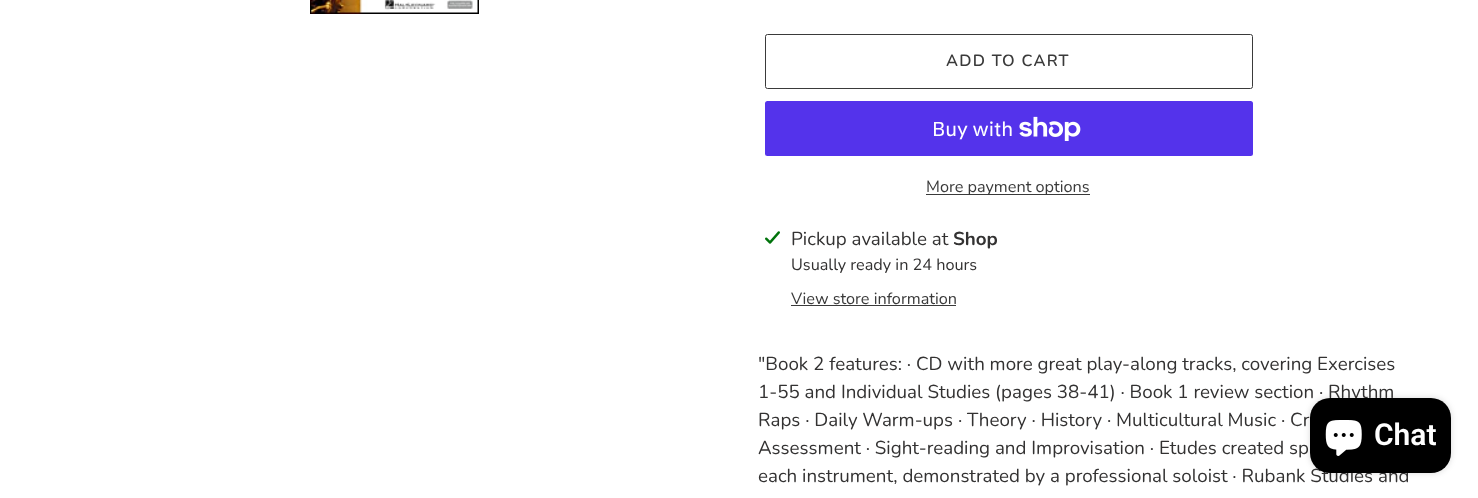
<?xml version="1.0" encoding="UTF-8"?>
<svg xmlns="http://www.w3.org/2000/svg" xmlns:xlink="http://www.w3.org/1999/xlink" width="1478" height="498">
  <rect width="100%" height="100%" fill="#ffffff" />
  <image x="310" y="0" width="169" height="14" xlink:href="image1.png" />
  <rect x="765.5" y="34.5" width="487" height="54" rx="2" fill="none" stroke="#3a3a3a" />
  <rect x="765" y="101" width="488" height="55" rx="2.5" fill="#5433eb" />
  <image x="1019" y="116" width="62" height="25" xlink:href="image2.png" />
  <rect x="926" y="194" width="164" height="1" fill="#3a3a3a" />
  <image x="765" y="231" width="15" height="13" xlink:href="image3.png" />
  <rect x="791" y="305" width="165" height="1" fill="#3a3a3a" />
  <rect x="1310" y="398" width="141" height="75" rx="20" fill="#000000" fill-opacity="0.15" filter="blur(3px)" />
  <text x="946" y="66" style="font-family: Nunito; font-size: 16.25px; font-weight: 600; letter-spacing: 1.25px; fill: #3a3a3a">ADD TO CART</text>
  <text x="932" y="136" style="font-family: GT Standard; font-size: 20px; fill: #ffffff">Buy with</text>
  <text x="926" y="192" style="font-family: Nunito; font-size: 16.25px; fill: #3a3a3a">More payment options</text>
  <text x="791" y="245" style="font-family: Nunito; font-size: 18.75px; fill: #333232">Pickup available at</text>
  <text x="953" y="245" style="font-family: Nunito; font-size: 18.75px; font-weight: bold; fill: #333232">Shop</text>
  <text x="791" y="270" style="font-family: Nunito; font-size: 16.25px; fill: #333232">Usually ready in 24 hours</text>
  <text x="791" y="304" style="font-family: Nunito; font-size: 16.25px; fill: #3a3a3a">View store information</text>
  <text x="758" y="370" style="font-family: Nunito; font-size: 18.75px; fill: #333232">"Book 2 features: · CD with more great play-along tracks, covering Exercises</text>
  <text x="758" y="398" style="font-family: Nunito; font-size: 18.75px; fill: #333232">1-55 and Individual Studies (pages 38-41) · Book 1 review section · Rhythm</text>
  <text x="758" y="426" style="font-family: Nunito; font-size: 18.75px; fill: #333232">Raps · Daily Warm-ups · Theory · History · Multicultural Music · Cr</text>
  <text x="758" y="454" style="font-family: Nunito; font-size: 18.75px; fill: #333232">Assessment · Sight-reading and Improvisation · Etudes created sp</text>
  <text x="758" y="482" style="font-family: Nunito; font-size: 18.75px; fill: #333232">each instrument, demonstrated by a professional soloist · Rubank Studies and</text>
  <rect x="1310" y="398" width="141" height="75" rx="20" fill="#000000" />
  <image x="1325" y="420" width="37" height="36" xlink:href="image4.png" />
  <text x="1374" y="445" style="font-family: Roboto; font-size: 30px; font-weight: 600; fill: #ffffff">Chat</text>
</svg>
